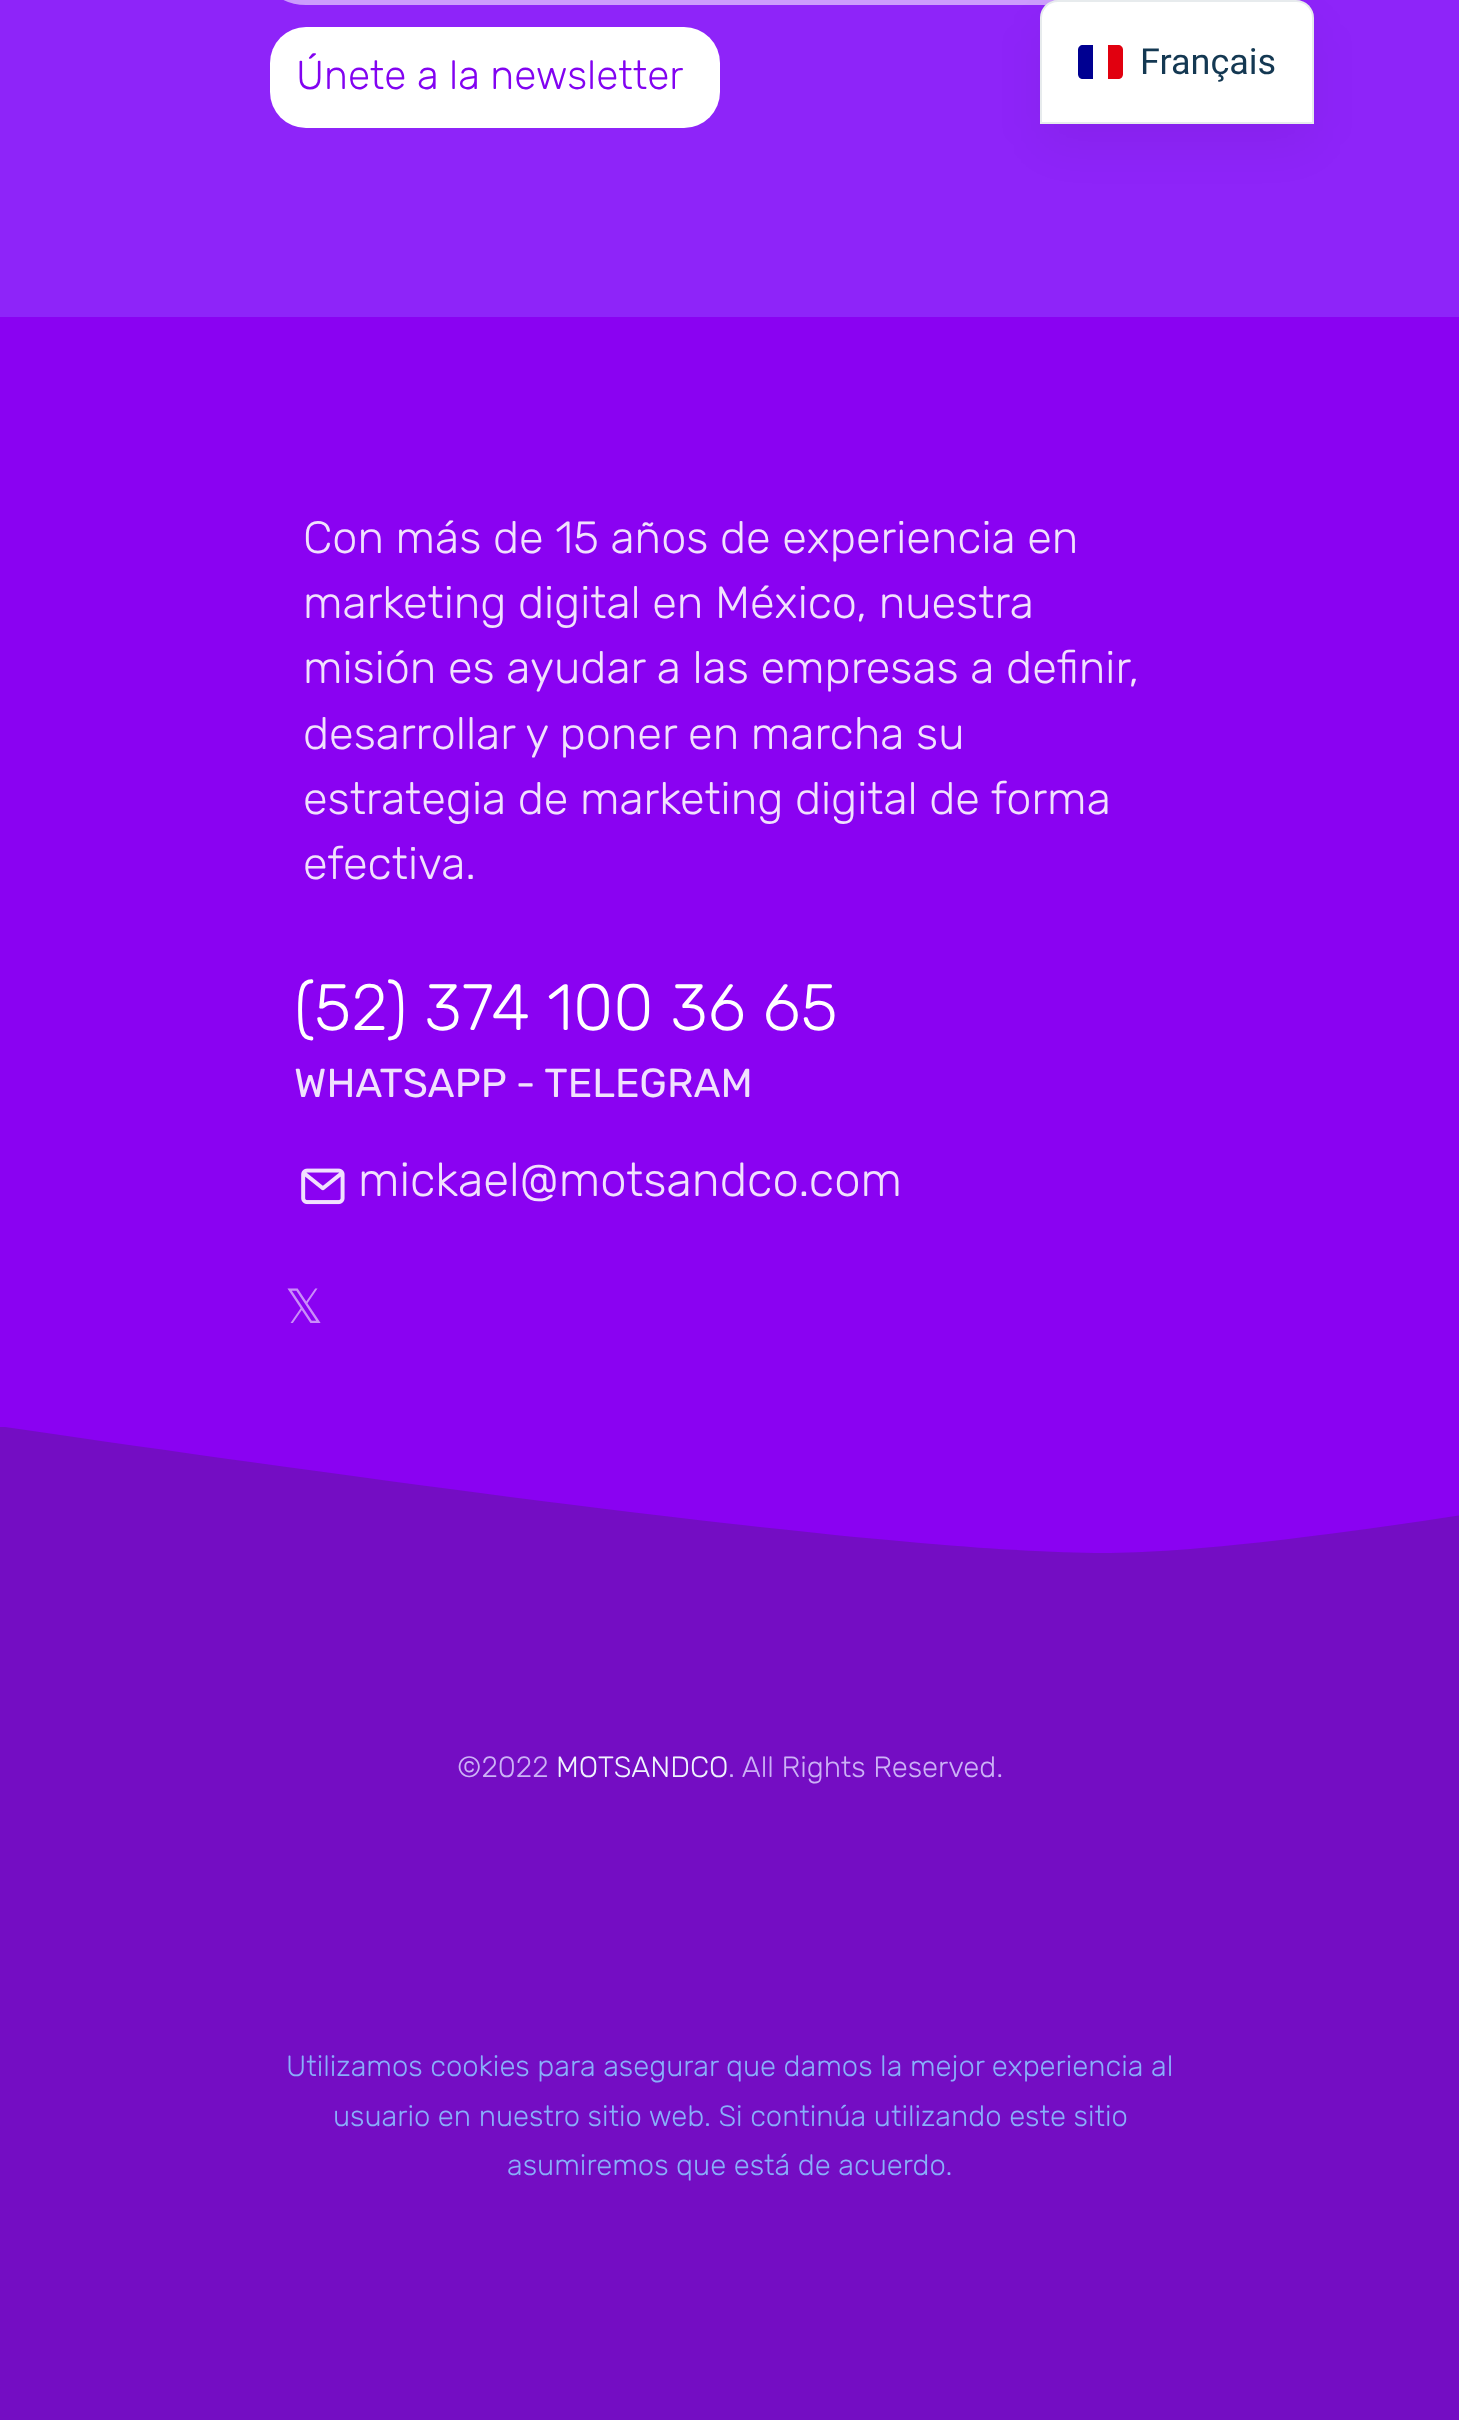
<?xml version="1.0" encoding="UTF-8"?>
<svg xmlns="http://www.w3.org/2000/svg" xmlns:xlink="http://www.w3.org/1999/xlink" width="1459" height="2420">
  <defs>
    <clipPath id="clip1"><rect y="1427" width="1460" height="135" /></clipPath>
  </defs>
  <rect width="100%" height="100%" fill="#8e24f9" />
  <rect x="272.5" y="-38.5" width="895" height="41" rx="33.5" fill="none" stroke="#cc9cfc" stroke-width="5" />
  <rect x="270" y="27" width="450" height="101" rx="36" fill="#ffffff" />
  <rect y="317" width="1459" height="1236" fill="#8a02f2" />
  <image x="301" y="1168" width="44" height="37" xlink:href="image1.png" />
  <g clip-path="url(#clip1)">
    <path d="M 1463 1515 c -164 25 -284 38 -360 38 c -155 0 -524 -42 -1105 -127 v 135 h 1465 z" fill="#740dc3" />
  </g>
  <rect y="1561" width="1459" height="859" fill="#740dc3" />
  <rect x="1040" y="23" width="274" height="123" rx="18" fill="#000000" fill-opacity="0.05" filter="blur(22.5px)" />
  <path d="M 1058 0 h 238 c 10 0 18 8 18 18 v 106 h -274 v -106 c 0 -10 8 -18 18 -18 z" fill="#ffffff" />
  <path d="M 1058 1 h 238 c 9.5 0 17 7.5 17 17 v 105 h -272 v -105 c 0 -9.5 7.5 -17 17 -17 z" fill="none" stroke="#143852" stroke-opacity="0.1" stroke-width="2" />
  <path d="M 1083 45 h 10 v 34 h -10 c -3 0 -5 -2 -5 -5 v -24 c 0 -3 2 -5 5 -5 z" fill="#000091" />
  <path d="M 1108 45 h 10 c 3 0 5 2 5 5 v 24 c 0 3 -2 5 -5 5 h -10 z" fill="#e1000f" />
  <text x="296" y="89" style="font-family: Rubik; font-size: 40.5px; font-weight: 300; fill: #8203f1">Únete a la newsletter</text>
  <text x="303" y="553" style="font-family: Rubik; font-size: 45px; font-weight: 300; fill: #f1e1fd">Con más de 15 años de experiencia en</text>
  <text x="303" y="618" style="font-family: Rubik; font-size: 45px; font-weight: 300; fill: #f1e1fd">marketing digital en México, nuestra</text>
  <text x="303" y="683" style="font-family: Rubik; font-size: 45px; font-weight: 300; fill: #f1e1fd">misión es ayudar a las empresas a definir,</text>
  <text x="303" y="749" style="font-family: Rubik; font-size: 45px; font-weight: 300; fill: #f1e1fd">desarrollar y poner en marcha su</text>
  <text x="303" y="814" style="font-family: Rubik; font-size: 45px; font-weight: 300; fill: #f1e1fd">estrategia de marketing digital de forma</text>
  <text x="303" y="879" style="font-family: Rubik; font-size: 45px; font-weight: 300; fill: #f1e1fd">efectiva.</text>
  <text x="294" y="1030" style="font-family: Rubik; font-size: 65.25px; font-weight: 300; fill: #ffffff">(52) 374 100 36 65</text>
  <text x="294" y="1097" style="font-family: Rubik; font-size: 40.5px; fill: #f1e1fd">WHATSAPP - TELEGRAM</text>
  <text x="358" y="1196" style="font-family: Rubik; font-size: 47.25px; font-weight: 300; fill: #f1e1fd">mickael@motsandco.com</text>
  <text x="285" y="1323" style="font-family: DejaVu Sans; font-size: 47.25px; fill: #ca8df9">𝕏</text>
  <text x="457" y="1777" style="font-family: Rubik; font-size: 29.25px; font-weight: 300; fill: #ccb2f6">©2022</text>
  <text x="556" y="1777" style="font-family: Rubik; font-size: 29.25px; font-weight: 300; fill: #f0f5fe">MOTSANDCO</text>
  <text x="728" y="1777" style="font-family: Rubik; font-size: 29.25px; font-weight: 300; fill: #ccb2f6">. All Rights Reserved.</text>
  <text x="286" y="2076" style="font-family: Rubik; font-size: 29.25px; font-weight: 300; fill: #89affa">Utilizamos cookies para asegurar que damos la mejor experiencia al</text>
  <text x="333" y="2126" style="font-family: Rubik; font-size: 29.25px; font-weight: 300; fill: #89affa">usuario en nuestro sitio web. Si continúa utilizando este sitio</text>
  <text x="507" y="2175" style="font-family: Rubik; font-size: 29.25px; font-weight: 300; fill: #89affa">asumiremos que está de acuerdo.</text>
  <text x="1140" y="74" style="font-family: Roboto; font-size: 36px; fill: #143852">Français</text>
</svg>
